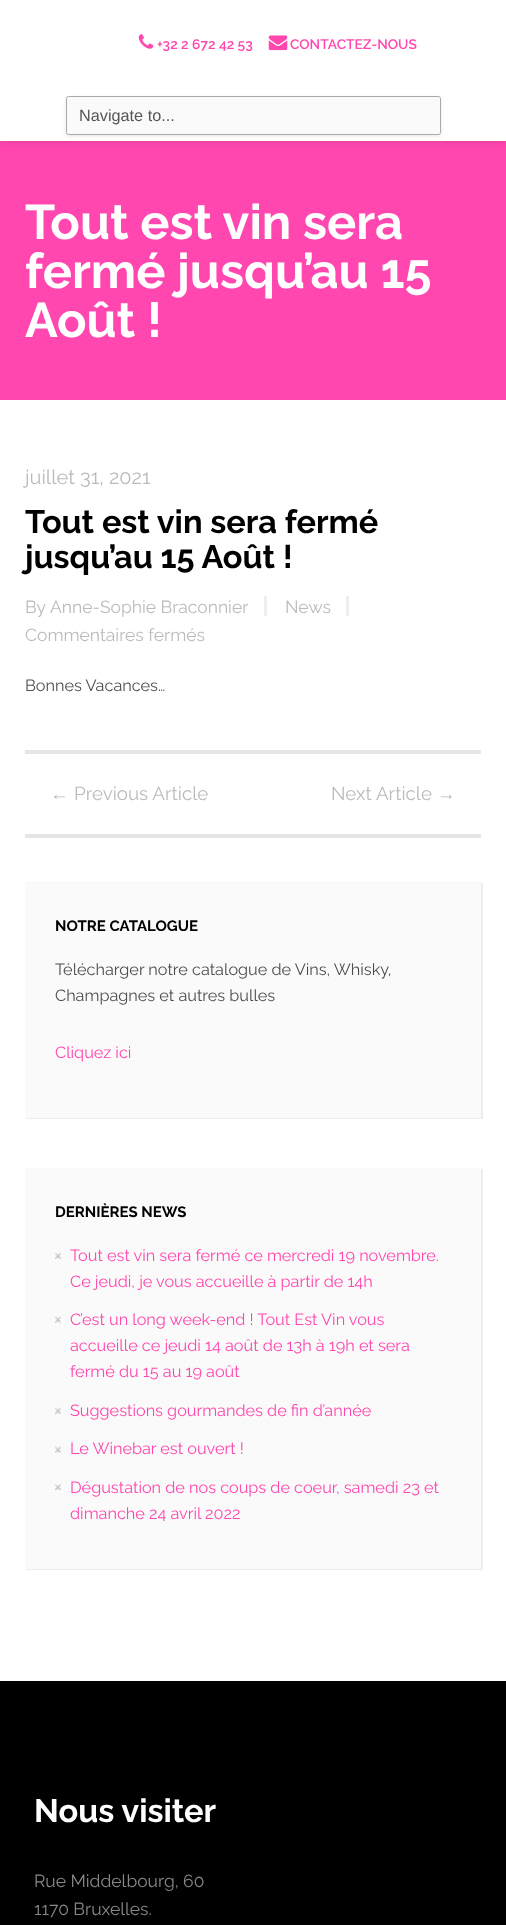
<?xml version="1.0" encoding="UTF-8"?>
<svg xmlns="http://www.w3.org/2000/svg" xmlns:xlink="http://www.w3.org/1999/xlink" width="506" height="1925">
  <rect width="100%" height="100%" fill="#000000" />
  <rect y="141" width="506" height="259" fill="#ff47af" />
  <rect width="506" height="141" fill="#000000" fill-opacity="0.13" filter="blur(4px)" />
  <rect width="506" height="141" fill="#ffffff" />
  <image x="138" y="34" width="16" height="15" xlink:href="image1.png" />
  <image x="268" y="35" width="20" height="16" xlink:href="image2.png" />
  <rect x="66" y="98" width="375" height="38" rx="2.5" fill="#000000" fill-opacity="0.1" filter="blur(2px)" />
  <rect x="66.5" y="96.5" width="374" height="38" rx="2" fill="#fafafa" stroke="#aaaaaa" />
  <rect y="400" width="506" height="1281" fill="#ffffff" />
  <rect x="264" y="596" width="3" height="20" fill="#eeeeee" />
  <rect x="346" y="596" width="3" height="20" fill="#eeeeee" />
  <rect x="25" y="750" width="456" height="4" fill="#e5e5e5" />
  <rect x="25" y="834" width="456" height="4" fill="#e5e5e5" />
  <rect x="26" y="883" width="457" height="236" fill="#000000" fill-opacity="0.07" filter="blur(0.5px)" />
  <rect x="25" y="881" width="456" height="237" fill="#fafafa" />
  <rect x="26" y="1169" width="457" height="401" fill="#000000" fill-opacity="0.07" filter="blur(0.5px)" />
  <rect x="25" y="1168" width="456" height="401" fill="#fafafa" />
  <image x="55" y="1252" width="7" height="7" xlink:href="image3.png" />
  <image x="55" y="1316" width="7" height="7" xlink:href="image4.png" />
  <image x="55" y="1407" width="7" height="7" xlink:href="image3.png" />
  <image x="55" y="1446" width="7" height="7" xlink:href="image4.png" />
  <image x="55" y="1483" width="7" height="7" xlink:href="image5.png" />
  <text x="157" y="49" style="font-family: Raleway; font-size: 13.75px; font-weight: 600; fill: #ff47af">+32 2 672 42 53</text>
  <text x="290" y="49" style="font-family: Raleway; font-size: 13.75px; font-weight: 600; fill: #ff47af">CONTACTEZ-NOUS</text>
  <text x="79" y="121" style="font-family: Liberation Sans; font-size: 16.25px; fill: #555555">Navigate to...</text>
  <text x="25" y="239" style="font-family: Raleway; font-size: 48.75px; font-weight: bold; fill: #ffffff">Tout est vin sera</text>
  <text x="25" y="288" style="font-family: Raleway; font-size: 48.75px; font-weight: bold; fill: #ffffff">fermé jusqu’au 15</text>
  <text x="25" y="337" style="font-family: Raleway; font-size: 48.75px; font-weight: bold; fill: #ffffff">Août !</text>
  <text x="25" y="484" style="font-family: Raleway; font-size: 20px; fill: #bbbbbb">juillet 31, 2021</text>
  <text x="25" y="533" style="font-family: Raleway; font-size: 32.5px; font-weight: bold; fill: #000000">Tout est vin sera fermé</text>
  <text x="25" y="568" style="font-family: Raleway; font-size: 32.5px; font-weight: bold; fill: #000000">jusqu’au 15 Août !</text>
  <text x="25" y="613" style="font-family: Raleway; font-size: 17.5px; fill: #bbbbbb">By</text>
  <text x="50" y="613" style="font-family: Raleway; font-size: 17.5px; fill: #bbbbbb">Anne-Sophie Braconnier</text>
  <text x="285" y="613" style="font-family: Raleway; font-size: 17.5px; fill: #bbbbbb">News</text>
  <text x="25" y="641" style="font-family: Raleway; font-size: 17.5px; fill: #bbbbbb">Commentaires fermés</text>
  <text x="25" y="691" style="font-family: Raleway; font-size: 16.25px; fill: #4e4e4e">Bonnes Vacances…</text>
  <text x="50" y="800" style="font-family: Liberation Sans; font-size: 18.75px; fill: #bbbbbb">←</text>
  <text x="74" y="800" style="font-family: Raleway; font-size: 18.75px; fill: #bbbbbb">Previous Article</text>
  <text x="331" y="800" style="font-family: Raleway; font-size: 18.75px; fill: #bbbbbb">Next Article</text>
  <text x="437" y="800" style="font-family: Liberation Sans; font-size: 18.75px; fill: #bbbbbb">→</text>
  <text x="55" y="931" style="font-family: Raleway; font-size: 15px; font-weight: bold; fill: #000000">NOTRE CATALOGUE</text>
  <text x="55" y="975" style="font-family: Raleway; font-size: 16.25px; fill: #4e4e4e">Télécharger notre catalogue de Vins, Whisky,</text>
  <text x="55" y="1001" style="font-family: Raleway; font-size: 16.25px; fill: #4e4e4e">Champagnes et autres bulles</text>
  <text x="55" y="1058" style="font-family: Raleway; font-size: 16.25px; fill: #ff47af">Cliquez ici</text>
  <text x="55" y="1217" style="font-family: Raleway; font-size: 15px; font-weight: bold; fill: #000000">DERNIÈRES NEWS</text>
  <text x="70" y="1261" style="font-family: Raleway; font-size: 16.25px; fill: #ff47af">Tout est vin sera fermé ce mercredi 19 novembre.</text>
  <text x="70" y="1287" style="font-family: Raleway; font-size: 16.25px; fill: #ff47af">Ce jeudi, je vous accueille à partir de 14h</text>
  <text x="70" y="1325" style="font-family: Raleway; font-size: 16.25px; fill: #ff47af">C’est un long week-end ! Tout Est Vin vous</text>
  <text x="70" y="1351" style="font-family: Raleway; font-size: 16.25px; fill: #ff47af">accueille ce jeudi 14 août de 13h à 19h et sera</text>
  <text x="70" y="1377" style="font-family: Raleway; font-size: 16.25px; fill: #ff47af">fermé du 15 au 19 août</text>
  <text x="70" y="1416" style="font-family: Raleway; font-size: 16.25px; fill: #ff47af">Suggestions gourmandes de fin d’année</text>
  <text x="70" y="1454" style="font-family: Raleway; font-size: 16.25px; fill: #ff47af">Le Winebar est ouvert !</text>
  <text x="70" y="1493" style="font-family: Raleway; font-size: 16.25px; fill: #ff47af">Dégustation de nos coups de coeur, samedi 23 et</text>
  <text x="70" y="1519" style="font-family: Raleway; font-size: 16.25px; fill: #ff47af">dimanche 24 avril 2022</text>
  <text x="34" y="1822" style="font-family: Raleway; font-size: 32.5px; font-weight: bold; fill: #ffffff">Nous visiter</text>
  <text x="34" y="1887" style="font-family: Raleway; font-size: 17.5px; fill: #888888">Rue Middelbourg, 60</text>
  <text x="34" y="1915" style="font-family: Raleway; font-size: 17.5px; fill: #888888">1170 Bruxelles.</text>
</svg>
